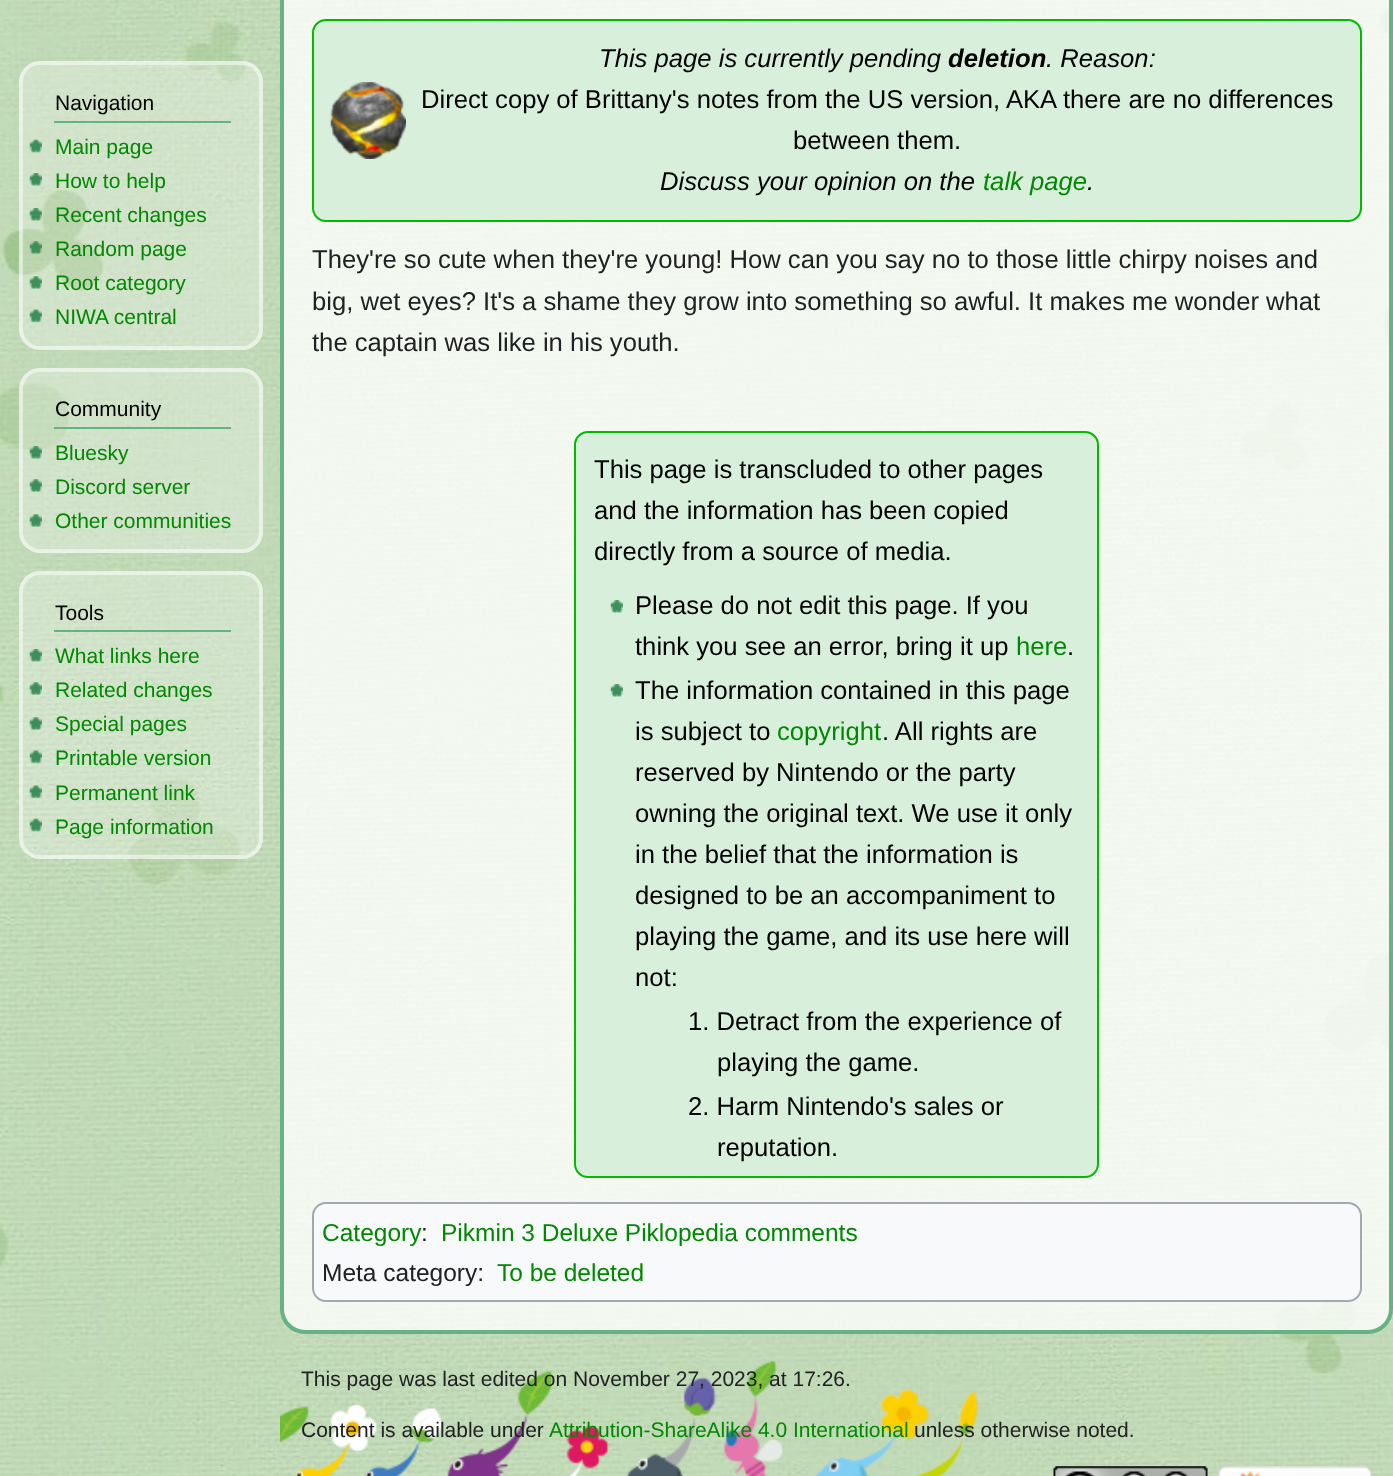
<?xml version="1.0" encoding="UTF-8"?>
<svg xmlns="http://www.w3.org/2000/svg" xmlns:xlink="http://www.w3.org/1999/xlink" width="1393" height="1476">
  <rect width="100%" height="100%" fill="#ffffff" />
  <image x="0" y="0" width="1393" height="1476" xlink:href="image1.png" />
  <rect x="19" y="61" width="244" height="289" rx="21" fill="#ffffff" fill-opacity="0.27" />
  <rect x="21" y="63" width="240" height="285" rx="19" fill="none" stroke="#ffffff" stroke-opacity="0.53" stroke-width="4" />
  <rect x="54" y="121" width="177" height="2" fill="#66b283" />
  <image x="29" y="139" width="13" height="14" xlink:href="image2.png" />
  <image x="29" y="173" width="13" height="13" xlink:href="image3.png" />
  <image x="29" y="208" width="13" height="13" xlink:href="image4.png" />
  <image x="29" y="241" width="13" height="13" xlink:href="image5.png" />
  <image x="29" y="276" width="13" height="13" xlink:href="image6.png" />
  <image x="29" y="309" width="13" height="14" xlink:href="image7.png" />
  <rect x="19" y="368" width="244" height="185" rx="21" fill="#ffffff" fill-opacity="0.27" />
  <rect x="21" y="370" width="240" height="181" rx="19" fill="none" stroke="#ffffff" stroke-opacity="0.53" stroke-width="4" />
  <rect x="54" y="427" width="177" height="2" fill="#66b283" />
  <image x="29" y="446" width="13" height="13" xlink:href="image8.png" />
  <image x="29" y="479" width="13" height="13" xlink:href="image9.png" />
  <image x="29" y="514" width="13" height="13" xlink:href="image10.png" />
  <rect x="19" y="571" width="244" height="288" rx="21" fill="#ffffff" fill-opacity="0.27" />
  <rect x="21" y="573" width="240" height="284" rx="19" fill="none" stroke="#ffffff" stroke-opacity="0.53" stroke-width="4" />
  <rect x="54" y="630" width="177" height="2" fill="#66b283" />
  <image x="29" y="649" width="13" height="13" xlink:href="image11.png" />
  <image x="29" y="682" width="13" height="13" xlink:href="image12.png" />
  <image x="29" y="717" width="13" height="13" xlink:href="image13.png" />
  <image x="29" y="750" width="13" height="14" xlink:href="image14.png" />
  <image x="29" y="785" width="13" height="14" xlink:href="image15.png" />
  <image x="29" y="818" width="13" height="14" xlink:href="image16.png" />
  <rect x="282" y="-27" width="1109" height="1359" rx="23" fill="#ffffff" fill-opacity="0.8" stroke="#66b283" stroke-width="4" />
  <rect x="313" y="20" width="1048" height="201" rx="13" fill="#d8f0db" stroke="#00bb00" stroke-width="2" />
  <image x="330" y="82" width="76" height="77" xlink:href="image17.png" />
  <rect x="575" y="432" width="523" height="745" rx="13" fill="#d8f0db" stroke="#00bb00" stroke-width="2" />
  <image x="610" y="600" width="13" height="13" xlink:href="image18.png" />
  <image x="610" y="684" width="13" height="13" xlink:href="image18.png" />
  <rect x="313" y="1203" width="1048" height="98" rx="13" fill="#f8f9fa" stroke="#a2a9b1" stroke-width="2" />
  <image x="280" y="1360" width="699" height="116" xlink:href="image19.png" />
  <image x="1053" y="1466" width="155" height="10" xlink:href="image20.png" />
  <image x="1218" y="1466" width="154" height="10" xlink:href="image21.png" />
  <text x="55" y="110" style="font-family: Liberation Sans; font-size: 21px; fill: #000000">Navigation</text>
  <text x="55" y="154" style="font-family: Liberation Sans; font-size: 21px; fill: #008800">Main page</text>
  <text x="55" y="188" style="font-family: Liberation Sans; font-size: 21px; fill: #008800">How to help</text>
  <text x="55" y="222" style="font-family: Liberation Sans; font-size: 21px; fill: #008800">Recent changes</text>
  <text x="55" y="256" style="font-family: Liberation Sans; font-size: 21px; fill: #008800">Random page</text>
  <text x="55" y="290" style="font-family: Liberation Sans; font-size: 21px; fill: #008800">Root category</text>
  <text x="55" y="324" style="font-family: Liberation Sans; font-size: 21px; fill: #008800">NIWA central</text>
  <text x="55" y="416" style="font-family: Liberation Sans; font-size: 21px; fill: #000000">Community</text>
  <text x="55" y="460" style="font-family: Liberation Sans; font-size: 21px; fill: #008800">Bluesky</text>
  <text x="55" y="494" style="font-family: Liberation Sans; font-size: 21px; fill: #008800">Discord server</text>
  <text x="55" y="528" style="font-family: Liberation Sans; font-size: 21px; fill: #008800">Other communities</text>
  <text x="55" y="620" style="font-family: Liberation Sans; font-size: 21px; fill: #000000">Tools</text>
  <text x="55" y="663" style="font-family: Liberation Sans; font-size: 21px; fill: #008800">What links here</text>
  <text x="55" y="697" style="font-family: Liberation Sans; font-size: 21px; fill: #008800">Related changes</text>
  <text x="55" y="731" style="font-family: Liberation Sans; font-size: 21px; fill: #008800">Special pages</text>
  <text x="55" y="765" style="font-family: Liberation Sans; font-size: 21px; fill: #008800">Printable version</text>
  <text x="55" y="800" style="font-family: Liberation Sans; font-size: 21px; fill: #008800">Permanent link</text>
  <text x="55" y="834" style="font-family: Liberation Sans; font-size: 21px; fill: #008800">Page information</text>
  <text x="599" y="67" style="font-family: Liberation Sans; font-size: 25.65px; font-style: italic; fill: #000000">This page is currently pending</text>
  <text x="948" y="67" style="font-family: Liberation Sans; font-size: 25.65px; font-weight: bold; font-style: italic; fill: #000000">deletion</text>
  <text x="1046" y="67" style="font-family: Liberation Sans; font-size: 25.65px; font-style: italic; fill: #000000">. Reason:</text>
  <text x="421" y="108" style="font-family: Liberation Sans; font-size: 25.65px; fill: #000000">Direct copy of Brittany's notes from the US version, AKA there are no differences</text>
  <text x="793" y="149" style="font-family: Liberation Sans; font-size: 25.65px; fill: #000000">between them.</text>
  <text x="660" y="190" style="font-family: Liberation Sans; font-size: 25.65px; font-style: italic; fill: #000000">Discuss your opinion on the</text>
  <text x="983" y="190" style="font-family: Liberation Sans; font-size: 25.65px; font-style: italic; fill: #008800">talk page</text>
  <text x="1087" y="190" style="font-family: Liberation Sans; font-size: 25.65px; font-style: italic; fill: #000000">.</text>
  <text x="312" y="268" style="font-family: Liberation Sans; font-size: 25.65px; fill: #202122">They're so cute when they're young! How can you say no to those little chirpy noises and</text>
  <text x="312" y="310" style="font-family: Liberation Sans; font-size: 25.65px; fill: #202122">big, wet eyes? It's a shame they grow into something so awful. It makes me wonder what</text>
  <text x="312" y="351" style="font-family: Liberation Sans; font-size: 25.65px; fill: #202122">the captain was like in his youth.</text>
  <text x="594" y="478" style="font-family: Liberation Sans; font-size: 25.65px; fill: #000000">This page is transcluded to other pages</text>
  <text x="594" y="519" style="font-family: Liberation Sans; font-size: 25.65px; fill: #000000">and the information has been copied</text>
  <text x="594" y="560" style="font-family: Liberation Sans; font-size: 25.65px; fill: #000000">directly from a source of media.</text>
  <text x="635" y="614" style="font-family: Liberation Sans; font-size: 25.65px; fill: #000000">Please do not edit this page. If you</text>
  <text x="635" y="655" style="font-family: Liberation Sans; font-size: 25.65px; fill: #000000">think you see an error, bring it up</text>
  <text x="1016" y="655" style="font-family: Liberation Sans; font-size: 25.65px; fill: #008800">here</text>
  <text x="1067" y="655" style="font-family: Liberation Sans; font-size: 25.65px; fill: #000000">.</text>
  <text x="635" y="699" style="font-family: Liberation Sans; font-size: 25.65px; fill: #000000">The information contained in this page</text>
  <text x="635" y="740" style="font-family: Liberation Sans; font-size: 25.65px; fill: #000000">is subject to</text>
  <text x="777" y="740" style="font-family: Liberation Sans; font-size: 25.65px; fill: #008800">copyright</text>
  <text x="882" y="740" style="font-family: Liberation Sans; font-size: 25.65px; fill: #000000">. All rights are</text>
  <text x="635" y="781" style="font-family: Liberation Sans; font-size: 25.65px; fill: #000000">reserved by Nintendo or the party</text>
  <text x="635" y="822" style="font-family: Liberation Sans; font-size: 25.65px; fill: #000000">owning the original text. We use it only</text>
  <text x="635" y="863" style="font-family: Liberation Sans; font-size: 25.65px; fill: #000000">in the belief that the information is</text>
  <text x="635" y="904" style="font-family: Liberation Sans; font-size: 25.65px; fill: #000000">designed to be an accompaniment to</text>
  <text x="635" y="945" style="font-family: Liberation Sans; font-size: 25.65px; fill: #000000">playing the game, and its use here will</text>
  <text x="635" y="986" style="font-family: Liberation Sans; font-size: 25.65px; fill: #000000">not:</text>
  <text x="688" y="1030" style="font-family: Liberation Sans; font-size: 25.65px; fill: #000000">1. Detract from the experience of</text>
  <text x="717" y="1071" style="font-family: Liberation Sans; font-size: 25.65px; fill: #000000">playing the game.</text>
  <text x="688" y="1115" style="font-family: Liberation Sans; font-size: 25.65px; fill: #000000">2. Harm Nintendo's sales or</text>
  <text x="717" y="1156" style="font-family: Liberation Sans; font-size: 25.65px; fill: #000000">reputation.</text>
  <text x="322" y="1241" style="font-family: Liberation Sans; font-size: 24.5px; fill: #008800">Category</text>
  <text x="421" y="1241" style="font-family: Liberation Sans; font-size: 24.5px; fill: #202122">:</text>
  <text x="441" y="1241" style="font-family: Liberation Sans; font-size: 24.5px; fill: #008800">Pikmin 3 Deluxe Piklopedia comments</text>
  <text x="322" y="1281" style="font-family: Liberation Sans; font-size: 24.5px; fill: #202122">Meta category:</text>
  <text x="497" y="1281" style="font-family: Liberation Sans; font-size: 24.5px; fill: #008800">To be deleted</text>
  <text x="301" y="1386" style="font-family: Liberation Sans; font-size: 21px; fill: #202122">This page was last edited on November 27, 2023, at 17:26.</text>
  <text x="301" y="1437" style="font-family: Liberation Sans; font-size: 21px; fill: #202122">Content is available under</text>
  <text x="549" y="1437" style="font-family: Liberation Sans; font-size: 21px; fill: #008800">Attribution-ShareAlike 4.0 International</text>
  <text x="914" y="1437" style="font-family: Liberation Sans; font-size: 21px; fill: #202122">unless otherwise noted.</text>
</svg>
